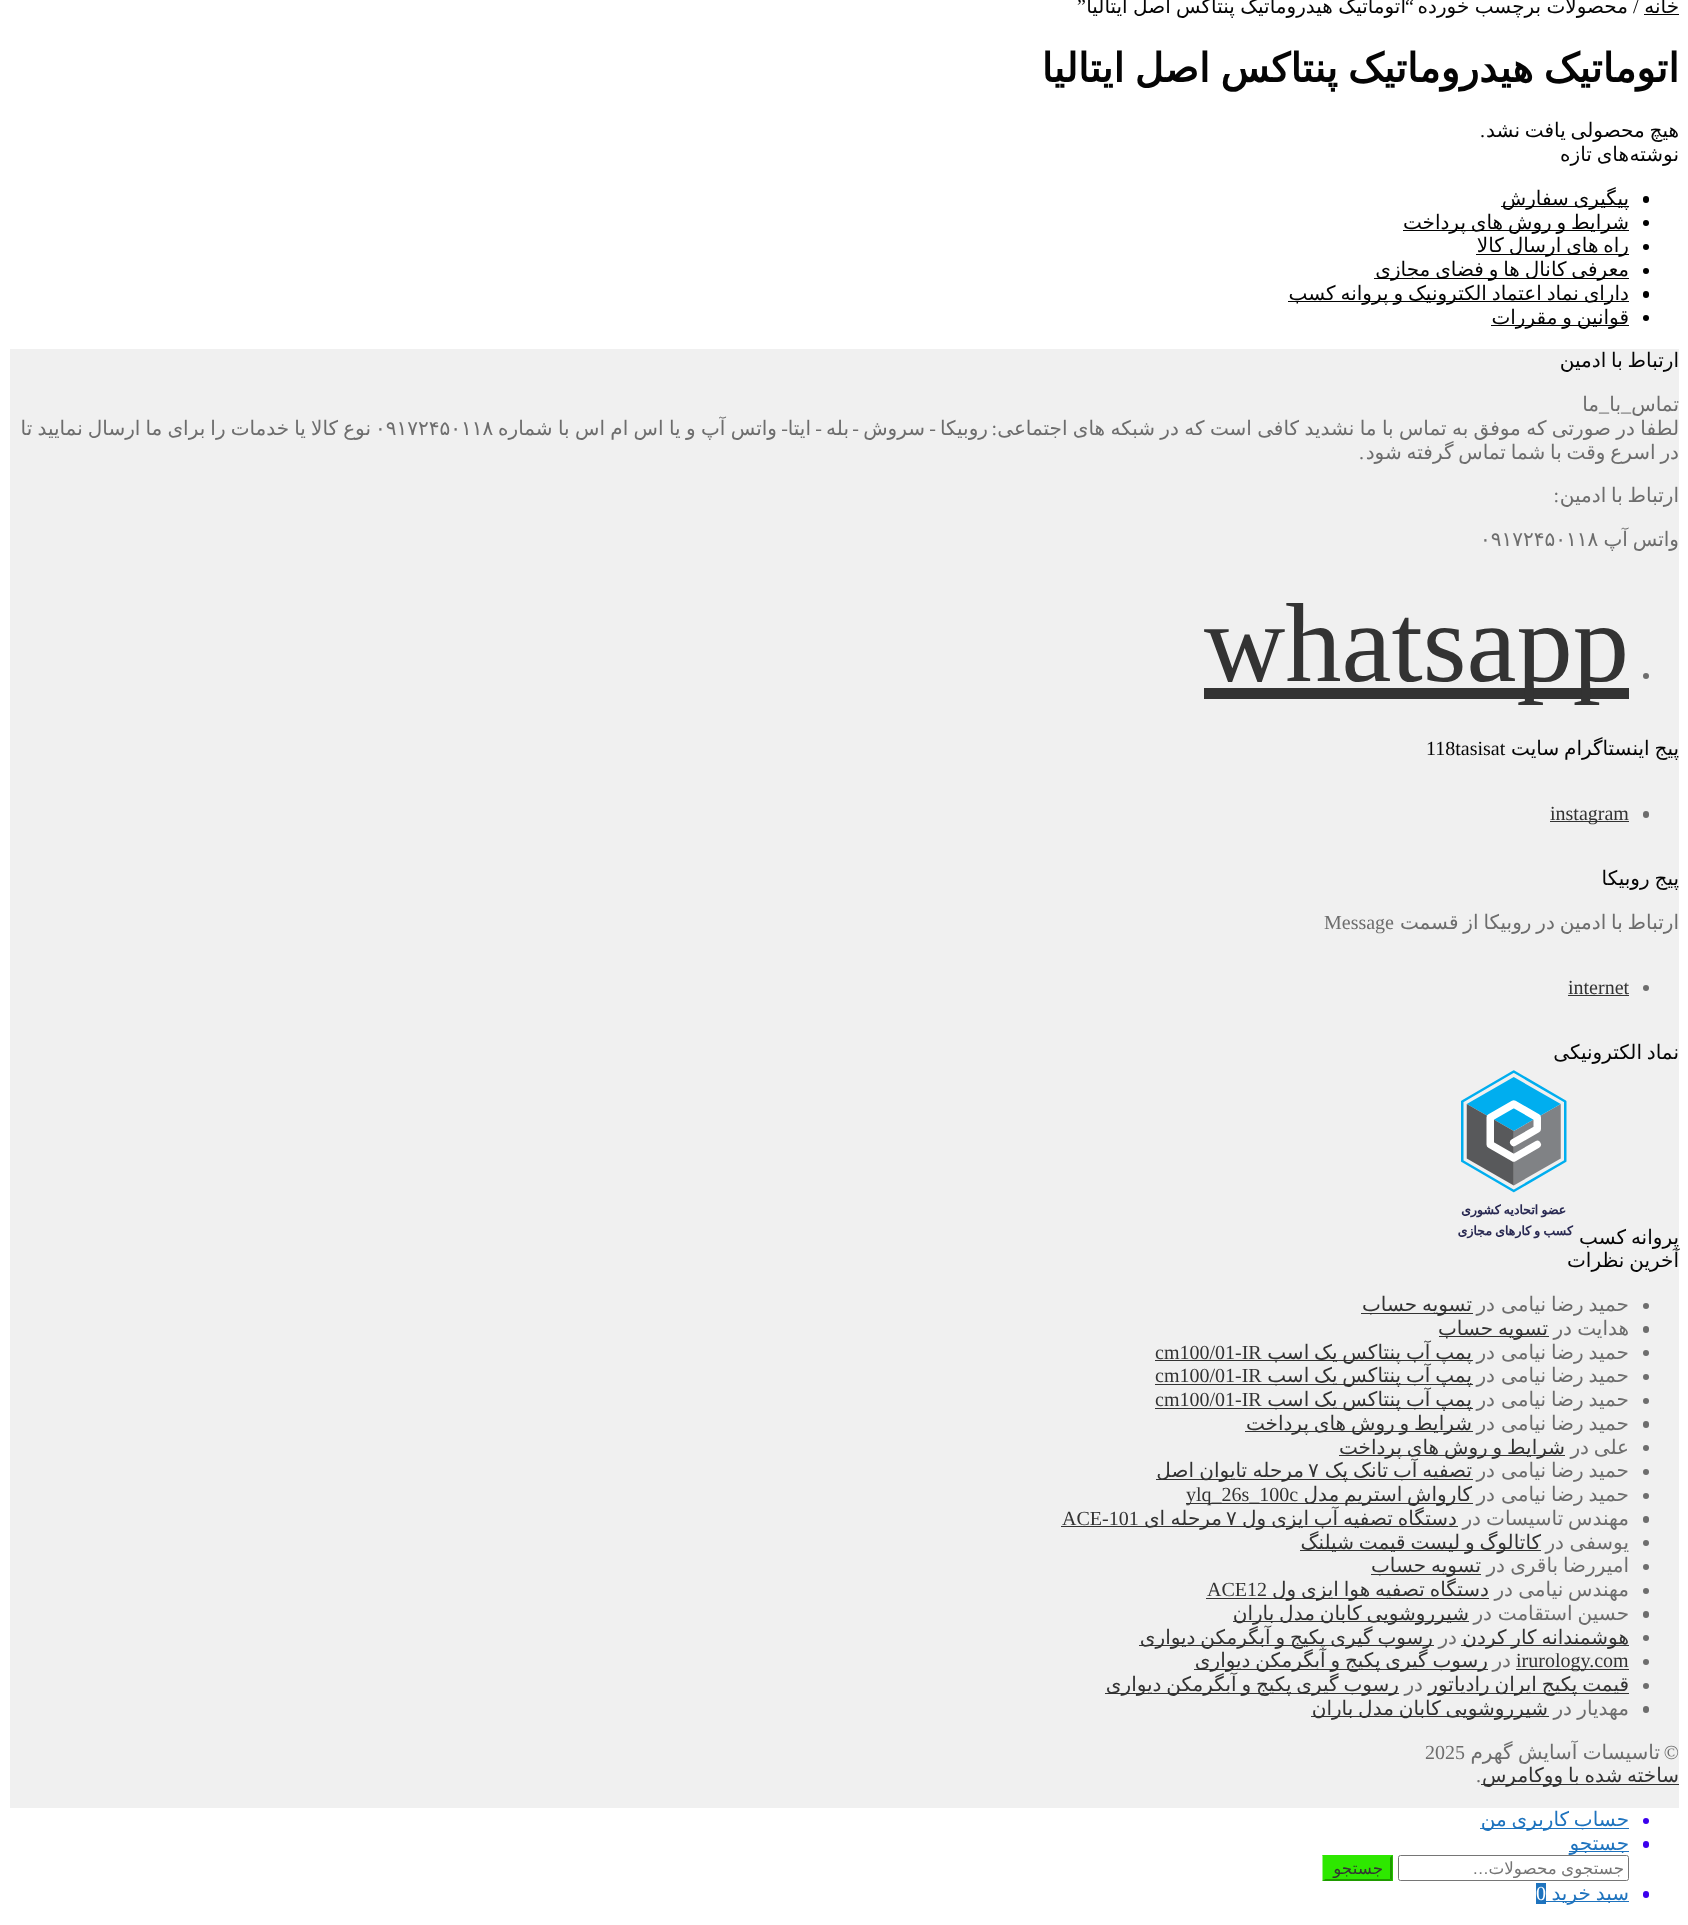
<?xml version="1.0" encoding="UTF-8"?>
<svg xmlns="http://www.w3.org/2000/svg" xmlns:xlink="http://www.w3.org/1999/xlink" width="1688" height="1925">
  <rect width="100%" height="100%" fill="#ffffff" />
  <rect x="1644" y="14" width="35" height="1" fill="#050505" />
  <rect x="1643" y="196" width="6" height="7" rx="3" fill="#000000" />
  <rect x="1501" y="206" width="128" height="1" fill="#050505" />
  <circle cx="1646" cy="223" r="3" fill="#000000" />
  <rect x="1403" y="230" width="226" height="1" fill="#050505" />
  <circle cx="1646" cy="247" r="3" fill="#000000" />
  <rect x="1476" y="254" width="153" height="1" fill="#050505" />
  <circle cx="1646" cy="271" r="3" fill="#000000" />
  <rect x="1374" y="278" width="255" height="1" fill="#050505" />
  <rect x="1643" y="291" width="6" height="7" rx="3" fill="#000000" />
  <rect x="1288" y="301" width="341" height="1" fill="#050505" />
  <circle cx="1646" cy="318" r="3" fill="#000000" />
  <rect x="1491" y="325" width="138" height="1" fill="#050505" />
  <rect x="10" y="349" width="1669" height="1459" fill="#f0f0f0" />
  <circle cx="1646" cy="676" r="3" fill="#6d6d6d" />
  <rect x="1204" y="688" width="425" height="11" fill="#333333" />
  <rect x="1643" y="811" width="6" height="7" rx="3" fill="#6d6d6d" />
  <rect x="1550" y="821" width="79" height="1" fill="#333333" />
  <circle cx="1646" cy="988" r="3" fill="#6d6d6d" />
  <rect x="1568" y="995" width="61" height="1" fill="#333333" />
  <image x="1458" y="1070" width="116" height="169" xlink:href="image1.png" />
  <circle cx="1646" cy="1306" r="3" fill="#6d6d6d" />
  <rect x="1361" y="1313" width="112" height="1" fill="#333333" />
  <rect x="1643" y="1326" width="6" height="7" rx="3" fill="#6d6d6d" />
  <rect x="1439" y="1336" width="110" height="1" fill="#333333" />
  <circle cx="1646" cy="1353" r="3" fill="#6d6d6d" />
  <rect x="1155" y="1360" width="318" height="1" fill="#333333" />
  <circle cx="1646" cy="1377" r="3" fill="#6d6d6d" />
  <rect x="1155" y="1384" width="318" height="1" fill="#333333" />
  <circle cx="1646" cy="1401" r="3" fill="#6d6d6d" />
  <rect x="1155" y="1408" width="318" height="1" fill="#333333" />
  <rect x="1643" y="1421" width="6" height="7" rx="3" fill="#6d6d6d" />
  <rect x="1245" y="1431" width="228" height="1" fill="#333333" />
  <circle cx="1646" cy="1448" r="3" fill="#6d6d6d" />
  <rect x="1339" y="1455" width="226" height="1" fill="#333333" />
  <circle cx="1646" cy="1472" r="3" fill="#6d6d6d" />
  <rect x="1156" y="1479" width="317" height="1" fill="#333333" />
  <circle cx="1646" cy="1496" r="3" fill="#6d6d6d" />
  <rect x="1186" y="1503" width="287" height="1" fill="#333333" />
  <rect x="1643" y="1516" width="6" height="7" rx="3" fill="#6d6d6d" />
  <rect x="1061" y="1526" width="397" height="1" fill="#333333" />
  <circle cx="1646" cy="1543" r="3" fill="#6d6d6d" />
  <rect x="1300" y="1550" width="241" height="1" fill="#333333" />
  <circle cx="1646" cy="1567" r="3" fill="#6d6d6d" />
  <rect x="1371" y="1574" width="110" height="1" fill="#333333" />
  <circle cx="1646" cy="1591" r="3" fill="#6d6d6d" />
  <rect x="1206" y="1598" width="283" height="1" fill="#333333" />
  <rect x="1643" y="1611" width="6" height="7" rx="3" fill="#6d6d6d" />
  <rect x="1233" y="1621" width="236" height="1" fill="#333333" />
  <circle cx="1646" cy="1638" r="3" fill="#6d6d6d" />
  <rect x="1461" y="1645" width="168" height="1" fill="#333333" />
  <rect x="1139" y="1645" width="295" height="1" fill="#333333" />
  <circle cx="1646" cy="1662" r="3" fill="#6d6d6d" />
  <rect x="1516" y="1669" width="113" height="1" fill="#333333" />
  <rect x="1194" y="1669" width="294" height="1" fill="#333333" />
  <circle cx="1646" cy="1686" r="3" fill="#6d6d6d" />
  <rect x="1428" y="1693" width="201" height="1" fill="#333333" />
  <rect x="1105" y="1693" width="294" height="1" fill="#333333" />
  <rect x="1643" y="1706" width="6" height="7" rx="3" fill="#6d6d6d" />
  <rect x="1311" y="1716" width="238" height="1" fill="#333333" />
  <rect x="1481" y="1784" width="198" height="1" fill="#333333" />
  <circle cx="1646" cy="1821" r="3" fill="#3b00ed" />
  <rect x="1480" y="1828" width="149" height="1" fill="#1e73be" />
  <rect x="1643" y="1841" width="6" height="7" rx="3" fill="#3b00ed" />
  <rect x="1569" y="1851" width="60" height="1" fill="#1e73be" />
  <rect x="1398.5" y="1855.5" width="230" height="25" rx="2" fill="none" stroke="#767676" />
  <rect x="1323" y="1855" width="70" height="26" fill="#2ee800" />
  <path d="M 1322 1855 h 70 l -2 3 h -65 z" fill="#2ee800" />
  <path d="M 1392.5 1855 v 26 l -2.5 -2 v -21.5 z" fill="#1f9b00" />
  <path d="M 1392 1881 h -70 l 3 -2 h 65 z" fill="#1f9b00" />
  <path d="M 1322.5 1881 v -26 l 2.5 2.5 v 21.5 z" fill="#2ee800" />
  <rect x="1643" y="1891" width="6" height="7" rx="3" fill="#3b00ed" />
  <rect x="1546" y="1901" width="83" height="1" fill="#1e73be" />
  <rect x="1536" y="1883" width="10" height="21" fill="#1e73be" />
  <text x="1679" y="13" style="font-family: DejaVu Sans; font-size: 20px; direction: rtl; fill: #050505">خانه</text>
  <text x="1633" y="13" style="font-family: Liberation Serif; font-size: 20px; fill: #050505">/</text>
  <text x="1628" y="13" word-spacing="-1" style="font-family: DejaVu Sans; font-size: 20px; direction: rtl; fill: #050505">محصولات برچسب خورده</text>
  <text x="1414" y="13" style="font-family: Liberation Serif; font-size: 20px; direction: rtl; fill: #050505">“</text>
  <text x="1406" y="13" word-spacing="-1" style="font-family: DejaVu Sans; font-size: 20px; direction: rtl; fill: #050505">اتوماتیک هیدروماتیک پنتاکس اصل ایتالیا</text>
  <text x="1086" y="13" style="font-family: Liberation Serif; font-size: 20px; direction: rtl; fill: #050505">”</text>
  <text x="1679" y="82" word-spacing="-2.5" style="font-family: DejaVu Sans; font-size: 40px; font-weight: bold; direction: rtl; fill: #050505">اتوماتیک هیدروماتیک پنتاکس اصل ایتالیا</text>
  <text x="1679" y="137" word-spacing="-1.5" style="font-family: DejaVu Sans; font-size: 20px; direction: rtl; fill: #050505">هیچ محصولی یافت نشد</text>
  <text x="1485" y="137" style="font-family: Liberation Serif; font-size: 20px; direction: rtl; fill: #050505">.</text>
  <text x="1679" y="161" style="font-family: DejaVu Sans; font-size: 20px; direction: rtl; fill: #050505">نوشته</text>
  <text x="1629" y="161" word-spacing="-1.5" style="font-family: DejaVu Sans; font-size: 20px; direction: rtl; fill: #050505">های تازه</text>
  <text x="1629" y="205" word-spacing="-1.5" style="font-family: DejaVu Sans; font-size: 20px; direction: rtl; fill: #050505">پیگیری سفارش</text>
  <text x="1629" y="229" word-spacing="-1.5" style="font-family: DejaVu Sans; font-size: 20px; direction: rtl; fill: #050505">شرایط و روش های پرداخت</text>
  <text x="1629" y="252" word-spacing="-1.5" style="font-family: DejaVu Sans; font-size: 20px; direction: rtl; fill: #050505">راه های ارسال کالا</text>
  <text x="1629" y="276" word-spacing="-1.5" style="font-family: DejaVu Sans; font-size: 20px; direction: rtl; fill: #050505">معرفی کانال ها و فضای مجازی</text>
  <text x="1629" y="300" word-spacing="-1.5" style="font-family: DejaVu Sans; font-size: 20px; direction: rtl; fill: #050505">دارای نماد اعتماد الکترونیک و پروانه کسب</text>
  <text x="1629" y="324" word-spacing="-1.5" style="font-family: DejaVu Sans; font-size: 20px; direction: rtl; fill: #050505">قوانین و مقررات</text>
  <text x="1679" y="367" word-spacing="-1.5" style="font-family: DejaVu Sans; font-size: 20px; direction: rtl; fill: #050505">ارتباط با ادمین</text>
  <text x="1679" y="411" style="font-family: DejaVu Sans; font-size: 20px; direction: rtl; fill: #6d6d6d">تماس</text>
  <text x="1631" y="411" style="font-family: Liberation Serif; font-size: 20px; direction: rtl; fill: #6d6d6d">_</text>
  <text x="1621" y="411" style="font-family: DejaVu Sans; font-size: 20px; direction: rtl; fill: #6d6d6d">با</text>
  <text x="1609" y="411" style="font-family: Liberation Serif; font-size: 20px; direction: rtl; fill: #6d6d6d">_</text>
  <text x="1599" y="411" style="font-family: DejaVu Sans; font-size: 20px; direction: rtl; fill: #6d6d6d">ما</text>
  <text x="1679" y="435" word-spacing="-1" style="font-family: DejaVu Sans; font-size: 20px; direction: rtl; fill: #6d6d6d">لطفا در صورتی که موفق به تماس با ما نشدید کافی است که در شبکه های اجتماعی</text>
  <text x="997" y="435" style="font-family: Liberation Serif; font-size: 20px; direction: rtl; fill: #6d6d6d">:</text>
  <text x="988" y="435" style="font-family: DejaVu Sans; font-size: 20px; direction: rtl; fill: #6d6d6d">روبیکا</text>
  <text x="936" y="435" style="font-family: Liberation Serif; font-size: 20px; direction: rtl; fill: #6d6d6d">-</text>
  <text x="925" y="435" style="font-family: DejaVu Sans; font-size: 20px; direction: rtl; fill: #6d6d6d">سروش</text>
  <text x="859" y="435" style="font-family: Liberation Serif; font-size: 20px; direction: rtl; fill: #6d6d6d">-</text>
  <text x="849" y="435" style="font-family: DejaVu Sans; font-size: 20px; direction: rtl; fill: #6d6d6d">بله</text>
  <text x="822" y="435" style="font-family: Liberation Serif; font-size: 20px; direction: rtl; fill: #6d6d6d">-</text>
  <text x="811" y="435" style="font-family: DejaVu Sans; font-size: 20px; direction: rtl; fill: #6d6d6d">ایتا</text>
  <text x="788" y="435" style="font-family: Liberation Serif; font-size: 20px; direction: rtl; fill: #6d6d6d">-</text>
  <text x="777" y="435" word-spacing="-1" style="font-family: DejaVu Sans; font-size: 20px; direction: rtl; fill: #6d6d6d">واتس آپ و یا اس ام اس با شماره</text>
  <text x="375" y="435" style="font-family: DejaVu Sans; font-size: 20px; fill: #6d6d6d">۰۹۱۷۲۴۵۰۱۱۸</text>
  <text x="371" y="435" word-spacing="-1.25" style="font-family: DejaVu Sans; font-size: 20px; direction: rtl; fill: #6d6d6d">نوع کالا یا خدمات را برای ما ارسال نمایید تا</text>
  <text x="1679" y="459" word-spacing="-1.5" style="font-family: DejaVu Sans; font-size: 20px; direction: rtl; fill: #6d6d6d">در اسرع وقت با شما تماس گرفته شود</text>
  <text x="1364" y="459" style="font-family: Liberation Serif; font-size: 20px; direction: rtl; fill: #6d6d6d">.</text>
  <text x="1679" y="502" word-spacing="-1.5" style="font-family: DejaVu Sans; font-size: 20px; direction: rtl; fill: #6d6d6d">ارتباط با ادمین</text>
  <text x="1559" y="502" style="font-family: Liberation Serif; font-size: 20px; direction: rtl; fill: #6d6d6d">:</text>
  <text x="1679" y="546" word-spacing="-1.5" style="font-family: DejaVu Sans; font-size: 20px; direction: rtl; fill: #6d6d6d">واتس آپ</text>
  <text x="1480" y="546" style="font-family: DejaVu Sans; font-size: 20px; fill: #6d6d6d">۰۹۱۷۲۴۵۰۱۱۸</text>
  <text x="1204" y="681" style="font-family: Liberation Serif; font-size: 112.5px; fill: #333333">whatsapp</text>
  <text x="1679" y="755" word-spacing="-1.5" style="font-family: DejaVu Sans; font-size: 20px; direction: rtl; fill: #050505">پیج اینستاگرام سایت</text>
  <text x="1426" y="755" style="font-family: Liberation Serif; font-size: 20px; fill: #050505">118tasisat</text>
  <text x="1550" y="820" style="font-family: Liberation Serif; font-size: 20px; fill: #333333">instagram</text>
  <text x="1679" y="885" word-spacing="-1.5" style="font-family: DejaVu Sans; font-size: 20px; direction: rtl; fill: #050505">پیج روبیکا</text>
  <text x="1679" y="929" word-spacing="-1.5" style="font-family: DejaVu Sans; font-size: 20px; direction: rtl; fill: #6d6d6d">ارتباط با ادمین در روبیکا از قسمت</text>
  <text x="1324" y="929" style="font-family: Liberation Serif; font-size: 20px; fill: #6d6d6d">Message</text>
  <text x="1568" y="994" style="font-family: Liberation Serif; font-size: 20px; fill: #333333">internet</text>
  <text x="1679" y="1059" word-spacing="-1.5" style="font-family: DejaVu Sans; font-size: 20px; direction: rtl; fill: #050505">نماد الکترونیکی</text>
  <text x="1679" y="1244" word-spacing="-1.5" style="font-family: DejaVu Sans; font-size: 20px; direction: rtl; fill: #050505">پروانه کسب</text>
  <text x="1679" y="1267" word-spacing="-1.5" style="font-family: DejaVu Sans; font-size: 20px; direction: rtl; fill: #050505">آخرین نظرات</text>
  <text x="1629" y="1311" word-spacing="-1.5" style="font-family: DejaVu Sans; font-size: 20px; direction: rtl; fill: #6d6d6d">حمید رضا نیامی</text>
  <text x="1495" y="1311" style="font-family: DejaVu Sans; font-size: 20px; direction: rtl; fill: #6d6d6d">در</text>
  <text x="1472" y="1311" word-spacing="-1.5" style="font-family: DejaVu Sans; font-size: 20px; direction: rtl; fill: #333333">تسویه حساب</text>
  <text x="1629" y="1335" style="font-family: DejaVu Sans; font-size: 20px; direction: rtl; fill: #6d6d6d">هدایت</text>
  <text x="1572" y="1335" style="font-family: DejaVu Sans; font-size: 20px; direction: rtl; fill: #6d6d6d">در</text>
  <text x="1548" y="1335" word-spacing="-1.5" style="font-family: DejaVu Sans; font-size: 20px; direction: rtl; fill: #333333">تسویه حساب</text>
  <text x="1629" y="1359" word-spacing="-1.5" style="font-family: DejaVu Sans; font-size: 20px; direction: rtl; fill: #6d6d6d">حمید رضا نیامی</text>
  <text x="1495" y="1359" style="font-family: DejaVu Sans; font-size: 20px; direction: rtl; fill: #6d6d6d">در</text>
  <text x="1472" y="1359" word-spacing="-1.5" style="font-family: DejaVu Sans; font-size: 20px; direction: rtl; fill: #333333">پمپ آب پنتاکس یک اسب</text>
  <text x="1155" y="1359" style="font-family: Liberation Serif; font-size: 20px; fill: #333333">cm100/01-IR</text>
  <text x="1629" y="1382" word-spacing="-1.5" style="font-family: DejaVu Sans; font-size: 20px; direction: rtl; fill: #6d6d6d">حمید رضا نیامی</text>
  <text x="1495" y="1382" style="font-family: DejaVu Sans; font-size: 20px; direction: rtl; fill: #6d6d6d">در</text>
  <text x="1472" y="1382" word-spacing="-1.5" style="font-family: DejaVu Sans; font-size: 20px; direction: rtl; fill: #333333">پمپ آب پنتاکس یک اسب</text>
  <text x="1155" y="1382" style="font-family: Liberation Serif; font-size: 20px; fill: #333333">cm100/01-IR</text>
  <text x="1629" y="1406" word-spacing="-1.5" style="font-family: DejaVu Sans; font-size: 20px; direction: rtl; fill: #6d6d6d">حمید رضا نیامی</text>
  <text x="1495" y="1406" style="font-family: DejaVu Sans; font-size: 20px; direction: rtl; fill: #6d6d6d">در</text>
  <text x="1472" y="1406" word-spacing="-1.5" style="font-family: DejaVu Sans; font-size: 20px; direction: rtl; fill: #333333">پمپ آب پنتاکس یک اسب</text>
  <text x="1155" y="1406" style="font-family: Liberation Serif; font-size: 20px; fill: #333333">cm100/01-IR</text>
  <text x="1629" y="1430" word-spacing="-1.5" style="font-family: DejaVu Sans; font-size: 20px; direction: rtl; fill: #6d6d6d">حمید رضا نیامی</text>
  <text x="1495" y="1430" style="font-family: DejaVu Sans; font-size: 20px; direction: rtl; fill: #6d6d6d">در</text>
  <text x="1472" y="1430" word-spacing="-1.5" style="font-family: DejaVu Sans; font-size: 20px; direction: rtl; fill: #333333">شرایط و روش های پرداخت</text>
  <text x="1629" y="1454" style="font-family: DejaVu Sans; font-size: 20px; direction: rtl; fill: #6d6d6d">علی</text>
  <text x="1589" y="1454" style="font-family: DejaVu Sans; font-size: 20px; direction: rtl; fill: #6d6d6d">در</text>
  <text x="1565" y="1454" word-spacing="-1.5" style="font-family: DejaVu Sans; font-size: 20px; direction: rtl; fill: #333333">شرایط و روش های پرداخت</text>
  <text x="1629" y="1477" word-spacing="-1.5" style="font-family: DejaVu Sans; font-size: 20px; direction: rtl; fill: #6d6d6d">حمید رضا نیامی</text>
  <text x="1495" y="1477" style="font-family: DejaVu Sans; font-size: 20px; direction: rtl; fill: #6d6d6d">در</text>
  <text x="1472" y="1477" word-spacing="-1.5" style="font-family: DejaVu Sans; font-size: 20px; direction: rtl; fill: #333333">تصفیه آب تانک پک</text>
  <text x="1308" y="1477" style="font-family: DejaVu Sans; font-size: 20px; fill: #333333">۷</text>
  <text x="1304" y="1477" word-spacing="-1" style="font-family: DejaVu Sans; font-size: 20px; direction: rtl; fill: #333333">مرحله تایوان اصل</text>
  <text x="1629" y="1501" word-spacing="-1.5" style="font-family: DejaVu Sans; font-size: 20px; direction: rtl; fill: #6d6d6d">حمید رضا نیامی</text>
  <text x="1495" y="1501" style="font-family: DejaVu Sans; font-size: 20px; direction: rtl; fill: #6d6d6d">در</text>
  <text x="1472" y="1501" word-spacing="-1.5" style="font-family: DejaVu Sans; font-size: 20px; direction: rtl; fill: #333333">کارواش استریم مدل</text>
  <text x="1186" y="1501" style="font-family: Liberation Serif; font-size: 20px; fill: #333333">ylq_26s_100c</text>
  <text x="1629" y="1525" word-spacing="-1.5" style="font-family: DejaVu Sans; font-size: 20px; direction: rtl; fill: #6d6d6d">مهندس تاسیسات</text>
  <text x="1481" y="1525" style="font-family: DejaVu Sans; font-size: 20px; direction: rtl; fill: #6d6d6d">در</text>
  <text x="1457" y="1525" word-spacing="-1.5" style="font-family: DejaVu Sans; font-size: 20px; direction: rtl; fill: #333333">دستگاه تصفیه آب ایزی ول</text>
  <text x="1226" y="1525" style="font-family: DejaVu Sans; font-size: 20px; fill: #333333">۷</text>
  <text x="1222" y="1525" word-spacing="-1" style="font-family: DejaVu Sans; font-size: 20px; direction: rtl; fill: #333333">مرحله ای</text>
  <text x="1062" y="1525" style="font-family: Liberation Serif; font-size: 20px; fill: #333333">ACE-101</text>
  <text x="1629" y="1549" style="font-family: DejaVu Sans; font-size: 20px; direction: rtl; fill: #6d6d6d">یوسفی</text>
  <text x="1564" y="1549" style="font-family: DejaVu Sans; font-size: 20px; direction: rtl; fill: #6d6d6d">در</text>
  <text x="1541" y="1549" word-spacing="-1.5" style="font-family: DejaVu Sans; font-size: 20px; direction: rtl; fill: #333333">کاتالوگ و لیست قیمت شیلنگ</text>
  <text x="1629" y="1572" word-spacing="-1.5" style="font-family: DejaVu Sans; font-size: 20px; direction: rtl; fill: #6d6d6d">امیررضا باقری</text>
  <text x="1505" y="1572" style="font-family: DejaVu Sans; font-size: 20px; direction: rtl; fill: #6d6d6d">در</text>
  <text x="1481" y="1572" word-spacing="-1.5" style="font-family: DejaVu Sans; font-size: 20px; direction: rtl; fill: #333333">تسویه حساب</text>
  <text x="1629" y="1596" word-spacing="-1.5" style="font-family: DejaVu Sans; font-size: 20px; direction: rtl; fill: #6d6d6d">مهندس نیامی</text>
  <text x="1513" y="1596" style="font-family: DejaVu Sans; font-size: 20px; direction: rtl; fill: #6d6d6d">در</text>
  <text x="1489" y="1596" word-spacing="-1.5" style="font-family: DejaVu Sans; font-size: 20px; direction: rtl; fill: #333333">دستگاه تصفیه هوا ایزی ول</text>
  <text x="1207" y="1596" style="font-family: Liberation Serif; font-size: 20px; fill: #333333">ACE12</text>
  <text x="1629" y="1620" word-spacing="-1.5" style="font-family: DejaVu Sans; font-size: 20px; direction: rtl; fill: #6d6d6d">حسین استقامت</text>
  <text x="1492" y="1620" style="font-family: DejaVu Sans; font-size: 20px; direction: rtl; fill: #6d6d6d">در</text>
  <text x="1469" y="1620" word-spacing="-1.5" style="font-family: DejaVu Sans; font-size: 20px; direction: rtl; fill: #333333">شیرروشویی کابان مدل باران</text>
  <text x="1629" y="1644" word-spacing="-1.5" style="font-family: DejaVu Sans; font-size: 20px; direction: rtl; fill: #333333">هوشمندانه کار کردن</text>
  <text x="1457" y="1644" style="font-family: DejaVu Sans; font-size: 20px; direction: rtl; fill: #6d6d6d">در</text>
  <text x="1433" y="1644" word-spacing="-1.5" style="font-family: DejaVu Sans; font-size: 20px; direction: rtl; fill: #333333">رسوب گیری پکیج و آبگرمکن دیواری</text>
  <text x="1516" y="1667" style="font-family: Liberation Serif; font-size: 20px; fill: #333333">irurology.com</text>
  <text x="1511" y="1667" style="font-family: DejaVu Sans; font-size: 20px; direction: rtl; fill: #6d6d6d">در</text>
  <text x="1488" y="1667" word-spacing="-1.5" style="font-family: DejaVu Sans; font-size: 20px; direction: rtl; fill: #333333">رسوب گیری پکیج و آبگرمکن دیواری</text>
  <text x="1629" y="1691" word-spacing="-1.5" style="font-family: DejaVu Sans; font-size: 20px; direction: rtl; fill: #333333">قیمت پکیج ایران رادیاتور</text>
  <text x="1423" y="1691" style="font-family: DejaVu Sans; font-size: 20px; direction: rtl; fill: #6d6d6d">در</text>
  <text x="1399" y="1691" word-spacing="-1.5" style="font-family: DejaVu Sans; font-size: 20px; direction: rtl; fill: #333333">رسوب گیری پکیج و آبگرمکن دیواری</text>
  <text x="1629" y="1715" style="font-family: DejaVu Sans; font-size: 20px; direction: rtl; fill: #6d6d6d">مهدیار</text>
  <text x="1572" y="1715" style="font-family: DejaVu Sans; font-size: 20px; direction: rtl; fill: #6d6d6d">در</text>
  <text x="1548" y="1715" word-spacing="-1.5" style="font-family: DejaVu Sans; font-size: 20px; direction: rtl; fill: #333333">شیرروشویی کابان مدل باران</text>
  <text x="1679" y="1759" style="font-family: Liberation Serif; font-size: 20px; direction: rtl; fill: #6d6d6d">©</text>
  <text x="1660" y="1759" word-spacing="-1" style="font-family: DejaVu Sans; font-size: 20px; direction: rtl; fill: #6d6d6d">تاسیسات آسایش گهرم</text>
  <text x="1425" y="1759" style="font-family: Liberation Serif; font-size: 20px; fill: #6d6d6d">2025</text>
  <text x="1679" y="1782" word-spacing="-1.5" style="font-family: DejaVu Sans; font-size: 20px; direction: rtl; fill: #333333">ساخته شده با ووکامرس</text>
  <text x="1476" y="1782" style="font-family: Liberation Serif; font-size: 20px; fill: #6d6d6d">.</text>
  <text x="1629" y="1826" word-spacing="-1.5" style="font-family: DejaVu Sans; font-size: 20px; direction: rtl; fill: #1e73be">حساب کاربری من</text>
  <text x="1629" y="1850" style="font-family: DejaVu Sans; font-size: 20px; direction: rtl; fill: #1e73be">جستجو</text>
  <text x="1624" y="1874" word-spacing="-1" style="font-family: DejaVu Sans; font-size: 16.75px; direction: rtl; fill: #757575">جستجوی محصولات</text>
  <text x="1489" y="1874" style="font-family: Liberation Sans; font-size: 16.75px; direction: rtl; fill: #757575">…</text>
  <text x="1383" y="1874" style="font-family: DejaVu Sans; font-size: 16.75px; direction: rtl; fill: #333333">جستجو</text>
  <text x="1629" y="1900" word-spacing="-1.5" style="font-family: DejaVu Sans; font-size: 20px; direction: rtl; fill: #1e73be">سبد خرید</text>
  <text x="1536" y="1900" style="font-family: Liberation Serif; font-size: 20px; fill: #ffffff">0</text>
</svg>
